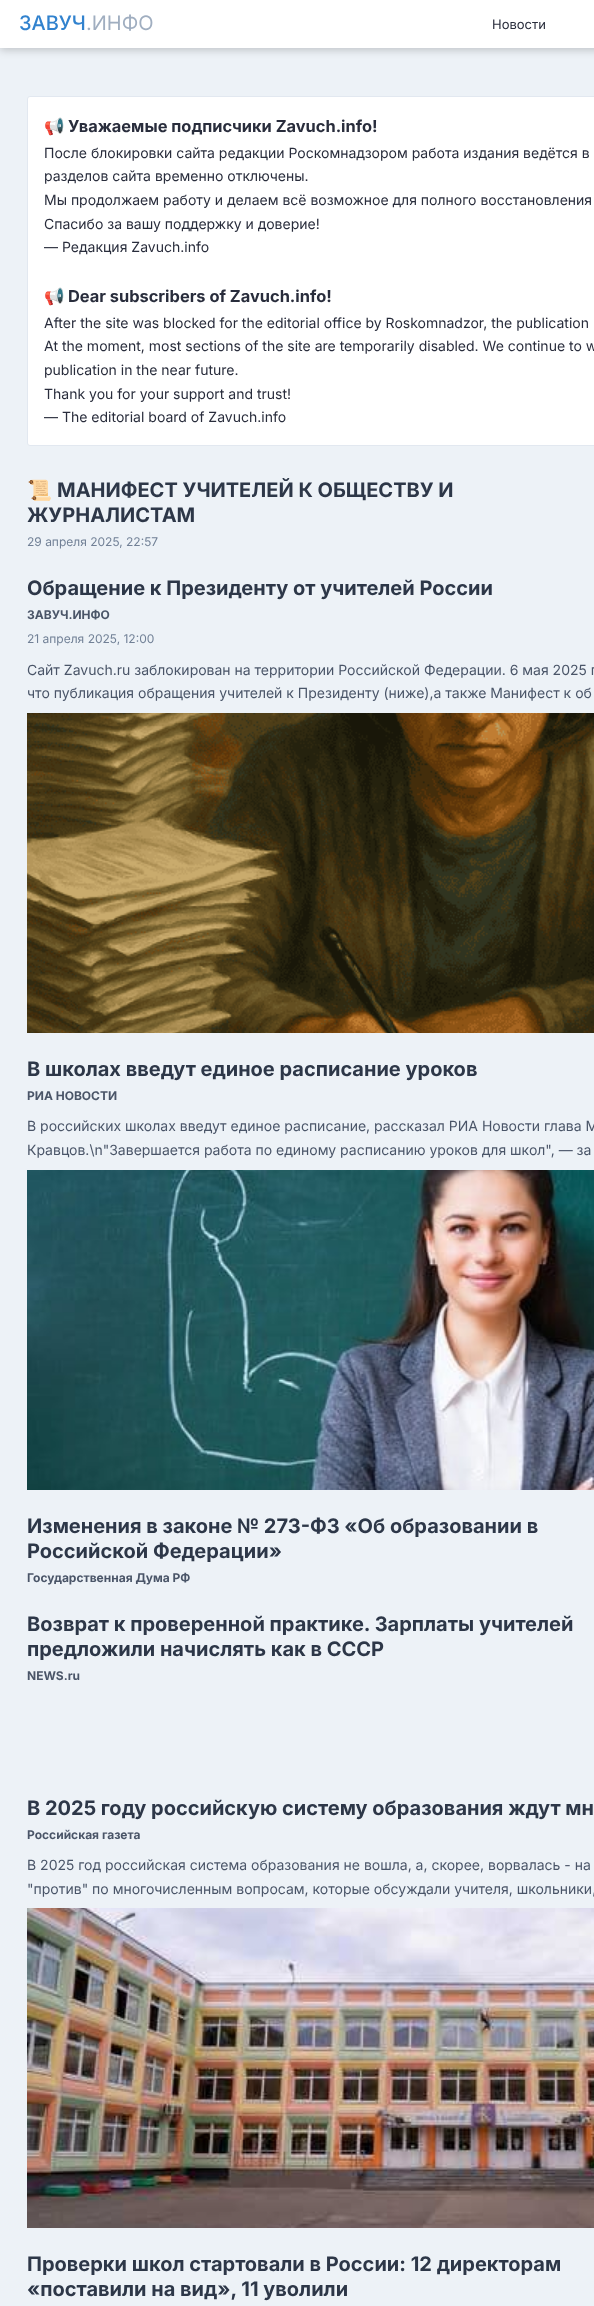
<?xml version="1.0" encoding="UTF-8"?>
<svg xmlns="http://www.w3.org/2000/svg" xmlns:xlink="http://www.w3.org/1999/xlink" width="594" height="2306">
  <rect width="100%" height="100%" fill="#edf2f7" />
  <rect y="2" width="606" height="48" fill="#000000" fill-opacity="0.2" filter="blur(4px)" />
  <rect width="594" height="48" fill="#ffffff" />
  <rect x="27.5" y="96.5" width="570" height="349" rx="2.5" fill="#ffffff" stroke="#e2e8f0" />
  <image x="27" y="713" width="567" height="320" xlink:href="image1.png" />
  <image x="27" y="1170" width="567" height="320" xlink:href="image2.png" />
  <image x="27" y="1908" width="567" height="320" xlink:href="image3.png" />
  <text x="19" y="30" style="font-family: Inter; font-size: 20px; font-weight: 500; fill: #3182ce">ЗАВУЧ</text>
  <text x="86" y="30" style="font-family: Inter; font-size: 20px; fill: #a0aec0">.ИНФО</text>
  <text x="492" y="29" style="font-family: Inter; font-size: 13px; fill: #292d3c">Новости</text>
  <text x="44" y="132" style="font-family: Noto Color Emoji; font-size: 16.4px; font-weight: bold; fill: #292d3c">📢</text>
  <text x="68" y="132" style="font-family: Inter; font-size: 16.4px; font-weight: bold; fill: #292d3c">Уважаемые подписчики Zavuch.info!</text>
  <text x="44" y="158" style="font-family: Inter; font-size: 14px; fill: #292d3c">После блокировки сайта редакции Роскомнадзором работа издания ведётся в</text>
  <text x="44" y="181" style="font-family: Inter; font-size: 14px; fill: #292d3c">разделов сайта временно отключены.</text>
  <text x="44" y="205" style="font-family: Inter; font-size: 14px; fill: #292d3c">Мы продолжаем работу и делаем всё возможное для полного восстановления</text>
  <text x="44" y="229" style="font-family: Inter; font-size: 14px; fill: #292d3c">Спасибо за вашу поддержку и доверие!</text>
  <text x="44" y="252" style="font-family: Inter; font-size: 14px; fill: #292d3c">— Редакция Zavuch.info</text>
  <text x="44" y="302" style="font-family: Noto Color Emoji; font-size: 16.4px; font-weight: bold; fill: #292d3c">📢</text>
  <text x="68" y="302" style="font-family: Inter; font-size: 16.4px; font-weight: bold; fill: #292d3c">Dear subscribers of Zavuch.info!</text>
  <text x="44" y="328" style="font-family: Inter; font-size: 14px; fill: #292d3c">After the site was blocked for the editorial office by Roskomnadzor, the publication</text>
  <text x="44" y="351" style="font-family: Inter; font-size: 14px; fill: #292d3c">At the moment, most sections of the site are temporarily disabled. We continue to w</text>
  <text x="44" y="375" style="font-family: Inter; font-size: 14px; fill: #292d3c">publication in the near future.</text>
  <text x="44" y="399" style="font-family: Inter; font-size: 14px; fill: #292d3c">Thank you for your support and trust!</text>
  <text x="44" y="422" style="font-family: Inter; font-size: 14px; fill: #292d3c">— The editorial board of Zavuch.info</text>
  <text x="27" y="497" style="font-family: Noto Color Emoji; font-size: 20px; font-weight: bold; fill: #2d3748">📜</text>
  <text x="57" y="497" style="font-family: Inter; font-size: 20px; font-weight: bold; fill: #2d3748">МАНИФЕСТ УЧИТЕЛЕЙ К ОБЩЕСТВУ И</text>
  <text x="27" y="522" style="font-family: Inter; font-size: 20px; font-weight: bold; fill: #2d3748">ЖУРНАЛИСТАМ</text>
  <text x="27" y="546" style="font-family: Inter; font-size: 12px; fill: #718096">29 апреля 2025, 22:57</text>
  <text x="27" y="595" style="font-family: Inter; font-size: 20px; font-weight: bold; fill: #2d3748">Обращение к Президенту от учителей России</text>
  <text x="27" y="619" style="font-family: Inter; font-size: 12px; font-weight: bold; fill: #4a5568">ЗАВУЧ.ИНФО</text>
  <text x="27" y="643" style="font-family: Inter; font-size: 12px; fill: #718096">21 апреля 2025, 12:00</text>
  <text x="27" y="675" style="font-family: Inter; font-size: 14px; fill: #4a5568">Сайт Zavuch.ru заблокирован на территории Российской Федерации. 6 мая 2025 г</text>
  <text x="27" y="698" style="font-family: Inter; font-size: 14px; fill: #4a5568">что публикация обращения учителей к Президенту (ниже),а также Манифест к об</text>
  <text x="27" y="1076" style="font-family: Inter; font-size: 20px; font-weight: bold; fill: #2d3748">В школах введут единое расписание уроков</text>
  <text x="27" y="1100" style="font-family: Inter; font-size: 12px; font-weight: bold; fill: #4a5568">РИА НОВОСТИ</text>
  <text x="27" y="1131" style="font-family: Inter; font-size: 14px; fill: #4a5568">В российских школах введут единое расписание, рассказал РИА Новости глава М</text>
  <text x="27" y="1155" style="font-family: Inter; font-size: 14px; fill: #4a5568">Кравцов.\n"Завершается работа по единому расписанию уроков для школ", — за</text>
  <text x="27" y="1533" style="font-family: Inter; font-size: 20px; font-weight: bold; fill: #2d3748">Изменения в законе № 273-ФЗ «Об образовании в</text>
  <text x="27" y="1558" style="font-family: Inter; font-size: 20px; font-weight: bold; fill: #2d3748">Российской Федерации»</text>
  <text x="27" y="1582" style="font-family: Inter; font-size: 12px; font-weight: bold; fill: #4a5568">Государственная Дума РФ</text>
  <text x="27" y="1631" style="font-family: Inter; font-size: 20px; font-weight: bold; fill: #2d3748">Возврат к проверенной практике. Зарплаты учителей</text>
  <text x="27" y="1656" style="font-family: Inter; font-size: 20px; font-weight: bold; fill: #2d3748">предложили начислять как в СССР</text>
  <text x="27" y="1680" style="font-family: Inter; font-size: 12px; font-weight: bold; fill: #4a5568">NEWS.ru</text>
  <text x="27" y="1815" style="font-family: Inter; font-size: 20px; font-weight: bold; fill: #2d3748">В 2025 году российскую систему образования ждут мн</text>
  <text x="27" y="1839" style="font-family: Inter; font-size: 12px; font-weight: bold; fill: #4a5568">Российская газета</text>
  <text x="27" y="1870" style="font-family: Inter; font-size: 14px; fill: #4a5568">В 2025 год российская система образования не вошла, а, скорее, ворвалась - на</text>
  <text x="27" y="1894" style="font-family: Inter; font-size: 14px; fill: #4a5568">"против" по многочисленным вопросам, которые обсуждали учителя, школьники,</text>
  <text x="27" y="2271" style="font-family: Inter; font-size: 20px; font-weight: bold; fill: #2d3748">Проверки школ стартовали в России: 12 директорам</text>
  <text x="27" y="2296" style="font-family: Inter; font-size: 20px; font-weight: bold; fill: #2d3748">«поставили на вид», 11 уволили</text>
</svg>
